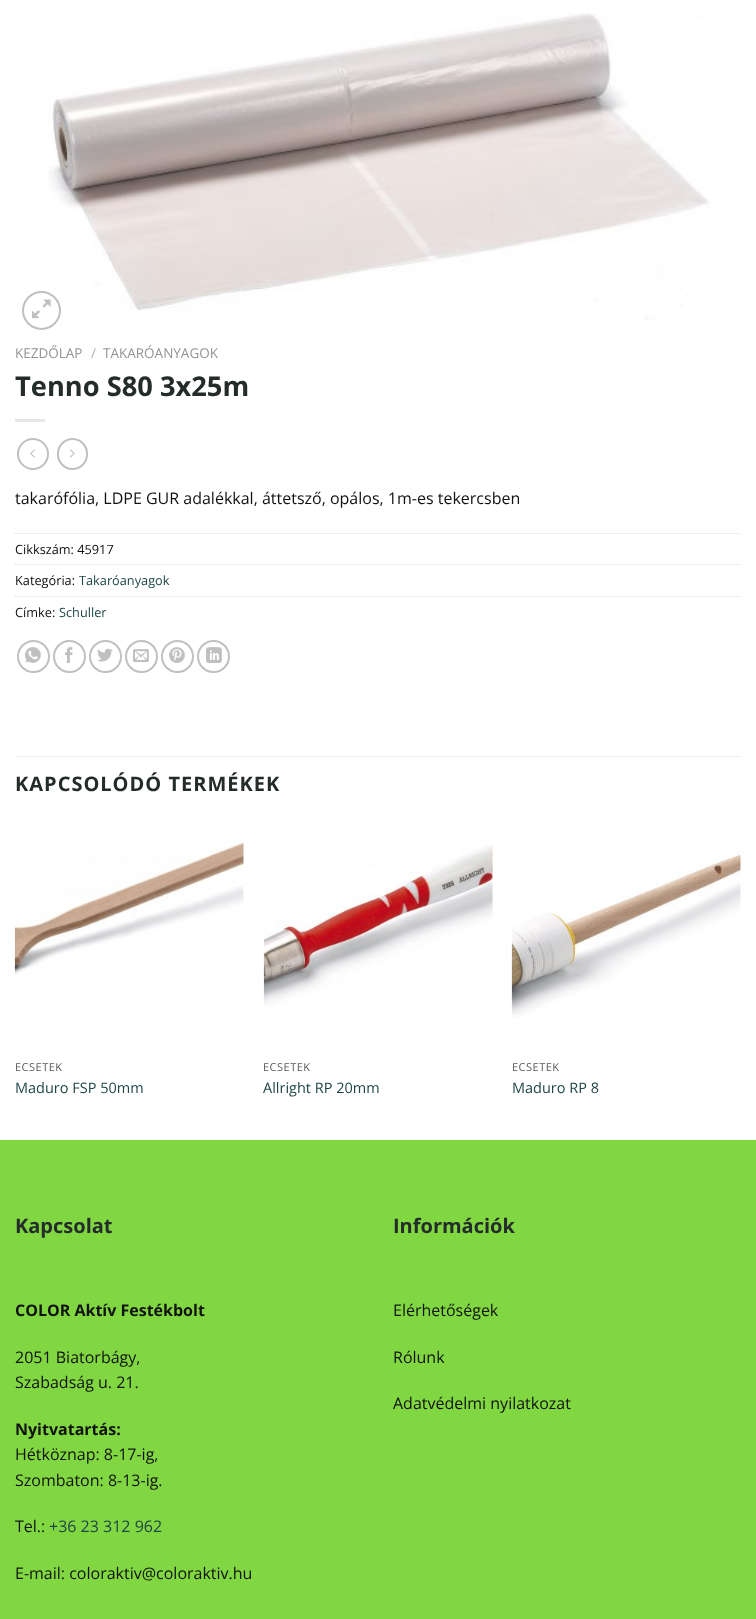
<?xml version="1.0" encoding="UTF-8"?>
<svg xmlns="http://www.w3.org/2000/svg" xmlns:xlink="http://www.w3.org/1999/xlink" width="756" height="1619">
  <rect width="100%" height="100%" fill="#ffffff" />
  <image x="48" y="12" width="662" height="309" xlink:href="image2.png" />
  <circle cx="41.5" cy="310.5" r="18.5" fill="none" stroke="#c0c0c0" stroke-width="2" />
  <image x="32" y="299" width="19" height="20" xlink:href="image1.png" />
  <rect x="15" y="419" width="30" height="3" fill="#e6e6e6" />
  <circle cx="33" cy="454" r="15" fill="none" stroke="#c0c0c0" stroke-width="2" />
  <image x="30" y="449" width="5" height="9" xlink:href="image3.png" />
  <rect x="58" y="439" width="29" height="30" rx="14.5" fill="none" stroke="#c0c0c0" stroke-width="2" />
  <image x="70" y="449" width="5" height="9" xlink:href="image4.png" />
  <path d="M 15 533.5 h 726" fill="none" stroke="#dddddd" stroke-dasharray="1 1" />
  <path d="M 15 564.5 h 726" fill="none" stroke="#dddddd" stroke-dasharray="1 1" />
  <path d="M 15 596.5 h 726" fill="none" stroke="#dddddd" stroke-dasharray="1 1" />
  <circle cx="33.5" cy="656.5" r="15.5" fill="none" stroke="#c0c0c0" stroke-width="2" />
  <image x="25" y="647" width="16" height="16" xlink:href="image5.png" />
  <circle cx="69.5" cy="656.5" r="15.5" fill="none" stroke="#c0c0c0" stroke-width="2" />
  <image x="65" y="647" width="8" height="16" xlink:href="image6.png" />
  <circle cx="105.5" cy="656.5" r="15.5" fill="none" stroke="#c0c0c0" stroke-width="2" />
  <image x="97" y="648" width="16" height="14" xlink:href="image7.png" />
  <circle cx="141.5" cy="656.5" r="15.5" fill="none" stroke="#c0c0c0" stroke-width="2" />
  <image x="133" y="649" width="16" height="13" xlink:href="image8.png" />
  <circle cx="177.5" cy="656.5" r="15.5" fill="none" stroke="#c0c0c0" stroke-width="2" />
  <image x="169" y="647" width="16" height="16" xlink:href="image9.png" />
  <circle cx="213.5" cy="656.5" r="15.5" fill="none" stroke="#c0c0c0" stroke-width="2" />
  <image x="206" y="647" width="16" height="16" xlink:href="image10.png" />
  <rect x="15" y="756" width="726" height="1" fill="#ececec" />
  <image x="14" y="836" width="230" height="139" xlink:href="image11.png" />
  <image x="263" y="844" width="230" height="163" xlink:href="image12.png" />
  <image x="511" y="849" width="230" height="169" xlink:href="image13.png" />
  <rect y="1140" width="756" height="479" fill="#81d742" />
  <text x="15" y="358" style="font-family: Open Sans; font-size: 13.5px; fill: #949494">KEZDŐLAP</text>
  <text x="91" y="358" style="font-family: Open Sans; font-size: 13.5px; fill: #b2b2b2">/</text>
  <text x="103" y="358" style="font-family: Open Sans; font-size: 13.5px; fill: #949494">TAKARÓANYAGOK</text>
  <text x="15" y="396" style="font-family: Open Sans; font-size: 27.25px; font-weight: bold; fill: #242b2b">Tenno S80 3x25m</text>
  <text x="15" y="504" style="font-family: Open Sans; font-size: 16px; fill: #111111">takarófólia, LDPE GUR adalékkal, áttetsző, opálos, 1m-es tekercsben</text>
  <text x="15" y="554" style="font-family: Open Sans; font-size: 12.75px; fill: #111111">Cikkszám: 45917</text>
  <text x="15" y="585" style="font-family: Open Sans; font-size: 12.75px; fill: #111111">Kategória:</text>
  <text x="79" y="585" style="font-family: Open Sans; font-size: 12.75px; fill: #1f4646">Takaróanyagok</text>
  <text x="15" y="617" style="font-family: Open Sans; font-size: 12.75px; fill: #111111">Címke:</text>
  <text x="59" y="617" style="font-family: Open Sans; font-size: 12.75px; fill: #1f4646">Schuller</text>
  <text x="15" y="791" style="font-family: Open Sans; font-size: 20px; font-weight: bold; letter-spacing: 1px; fill: #242b2b">KAPCSOLÓDÓ TERMÉKEK</text>
  <text x="15" y="1071" style="font-family: Open Sans; font-size: 11px; letter-spacing: 0.5px; fill: #585858">ECSETEK</text>
  <text x="15" y="1093" style="font-family: Open Sans; font-size: 14.5px; fill: #1f4646">Maduro FSP 50mm</text>
  <text x="263" y="1071" style="font-family: Open Sans; font-size: 11px; letter-spacing: 0.5px; fill: #585858">ECSETEK</text>
  <text x="263" y="1093" style="font-family: Open Sans; font-size: 14.5px; fill: #1f4646">Allright RP 20mm</text>
  <text x="512" y="1071" style="font-family: Open Sans; font-size: 11px; letter-spacing: 0.5px; fill: #585858">ECSETEK</text>
  <text x="512" y="1093" style="font-family: Open Sans; font-size: 14.5px; fill: #1f4646">Maduro RP 8</text>
  <text x="15" y="1233" style="font-family: Open Sans; font-size: 20px; font-weight: bold; fill: #242b2b">Kapcsolat</text>
  <text x="15" y="1316" style="font-family: Open Sans; font-size: 16px; font-weight: bold; fill: #111111">COLOR Aktív Festékbolt</text>
  <text x="15" y="1363" style="font-family: Open Sans; font-size: 16px; fill: #111111">2051 Biatorbágy,</text>
  <text x="15" y="1388" style="font-family: Open Sans; font-size: 16px; fill: #111111">Szabadság u. 21.</text>
  <text x="15" y="1435" style="font-family: Open Sans; font-size: 16px; font-weight: bold; fill: #111111">Nyitvatartás:</text>
  <text x="15" y="1460" style="font-family: Open Sans; font-size: 16px; fill: #111111">Hétköznap: 8-17-ig,</text>
  <text x="15" y="1486" style="font-family: Open Sans; font-size: 16px; fill: #111111">Szombaton: 8-13-ig.</text>
  <text x="15" y="1532" style="font-family: Open Sans; font-size: 16px; fill: #111111">Tel.:</text>
  <text x="49" y="1532" style="font-family: Open Sans; font-size: 16px; fill: #1f4646">+36 23 312 962</text>
  <text x="15" y="1579" style="font-family: Open Sans; font-size: 16px; fill: #111111">E-mail: coloraktiv@coloraktiv.hu</text>
  <text x="393" y="1233" style="font-family: Open Sans; font-size: 20px; font-weight: bold; fill: #242b2b">Információk</text>
  <text x="393" y="1316" style="font-family: Open Sans; font-size: 16px; fill: #111111">Elérhetőségek</text>
  <text x="393" y="1363" style="font-family: Open Sans; font-size: 16px; fill: #111111">Rólunk</text>
  <text x="393" y="1409" style="font-family: Open Sans; font-size: 16px; fill: #111111">Adatvédelmi nyilatkozat</text>
</svg>
